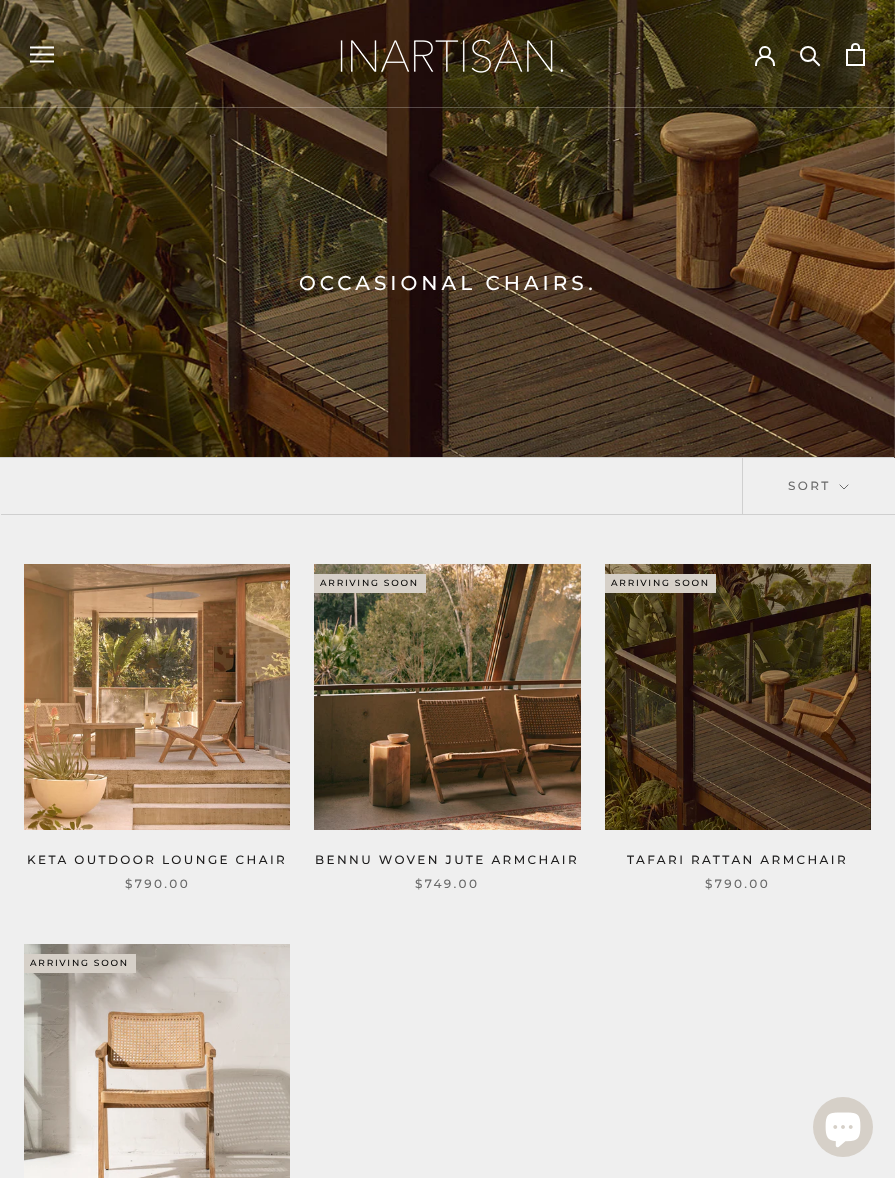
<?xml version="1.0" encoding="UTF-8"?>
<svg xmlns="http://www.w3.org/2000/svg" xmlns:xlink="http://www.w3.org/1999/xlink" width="895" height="1178">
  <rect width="100%" height="100%" fill="#efefef" />
  <image x="0" y="0" width="895" height="458" xlink:href="image4.png" />
  <rect y="107" width="895" height="1" fill="#ffffff" fill-opacity="0.25" />
  <image x="30" y="46" width="24" height="17" xlink:href="image1.png" />
  <image x="340" y="39" width="224" height="34" xlink:href="image2.png" />
  <path d="M 756 65 c 0 -11 18 -11 18 0" fill="none" stroke="#ffffff" stroke-width="2" stroke-linecap="square" />
  <circle cx="765" cy="52" r="5" fill="none" stroke="#ffffff" stroke-width="2" />
  <path d="M 819 65 l -5.5 -5.5" fill="none" stroke="#ffffff" stroke-width="2" stroke-linecap="square" />
  <circle cx="808" cy="54" r="7" fill="none" stroke="#ffffff" stroke-width="2" />
  <image x="846" y="43" width="19" height="23" xlink:href="image3.png" />
  <path d="M -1 457 v 56 h 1 v -55 h 894 v -1 z" fill="#cfcfcf" />
  <path d="M 1 514 v 1 h 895 v -56 h -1 v 55 z" fill="#cfcfcf" />
  <rect x="742" y="458" width="1" height="56" fill="#cfcfcf" />
  <path d="M 848 485 l -4 4 l -4 -4" fill="none" stroke="#6a6a6a" stroke-linecap="square" />
  <image x="24" y="564" width="266" height="266" xlink:href="image5.png" />
  <image x="314" y="564" width="267" height="266" xlink:href="image6.png" />
  <rect x="314" y="574" width="112" height="19" fill="#d6d0c8" />
  <image x="605" y="564" width="266" height="266" xlink:href="image7.png" />
  <rect x="605" y="574" width="111" height="19" fill="#d6d0c8" />
  <image x="24" y="944" width="266" height="234" xlink:href="image8.png" />
  <rect x="24" y="954" width="112" height="19" fill="#d6d0c8" />
  <circle cx="843" cy="1127" r="30" fill="#d6d0c8" />
  <image x="825" y="1112" width="36" height="36" xlink:href="image9.png" />
  <text x="299" y="290" style="font-family: Montserrat; font-size: 20px; font-weight: 500; letter-spacing: 4px; fill: #ffffff">OCCASIONAL CHAIRS.</text>
  <text x="788" y="490" style="font-family: Montserrat; font-size: 12px; font-weight: 500; letter-spacing: 2.4px; fill: #6a6a6a">SORT</text>
  <text x="27" y="864" style="font-family: Montserrat; font-size: 12px; font-weight: 500; letter-spacing: 2.4px; fill: #1c1b1b">KETA OUTDOOR LOUNGE CHAIR</text>
  <text x="125" y="888" style="font-family: Montserrat; font-size: 12px; font-weight: 500; letter-spacing: 2.4px; fill: #6a6a6a">$790.00</text>
  <text x="320" y="586" style="font-family: Montserrat; font-size: 9px; font-weight: 500; letter-spacing: 1.75px; fill: #000000">ARRIVING SOON</text>
  <text x="315" y="864" style="font-family: Montserrat; font-size: 12px; font-weight: 500; letter-spacing: 2.4px; fill: #1c1b1b">BENNU WOVEN JUTE ARMCHAIR</text>
  <text x="415" y="888" style="font-family: Montserrat; font-size: 12px; font-weight: 500; letter-spacing: 2.4px; fill: #6a6a6a">$749.00</text>
  <text x="611" y="586" style="font-family: Montserrat; font-size: 9px; font-weight: 500; letter-spacing: 1.75px; fill: #000000">ARRIVING SOON</text>
  <text x="627" y="864" style="font-family: Montserrat; font-size: 12px; font-weight: 500; letter-spacing: 2.4px; fill: #1c1b1b">TAFARI RATTAN ARMCHAIR</text>
  <text x="705" y="888" style="font-family: Montserrat; font-size: 12px; font-weight: 500; letter-spacing: 2.4px; fill: #6a6a6a">$790.00</text>
  <text x="30" y="966" style="font-family: Montserrat; font-size: 9px; font-weight: 500; letter-spacing: 1.75px; fill: #000000">ARRIVING SOON</text>
</svg>
